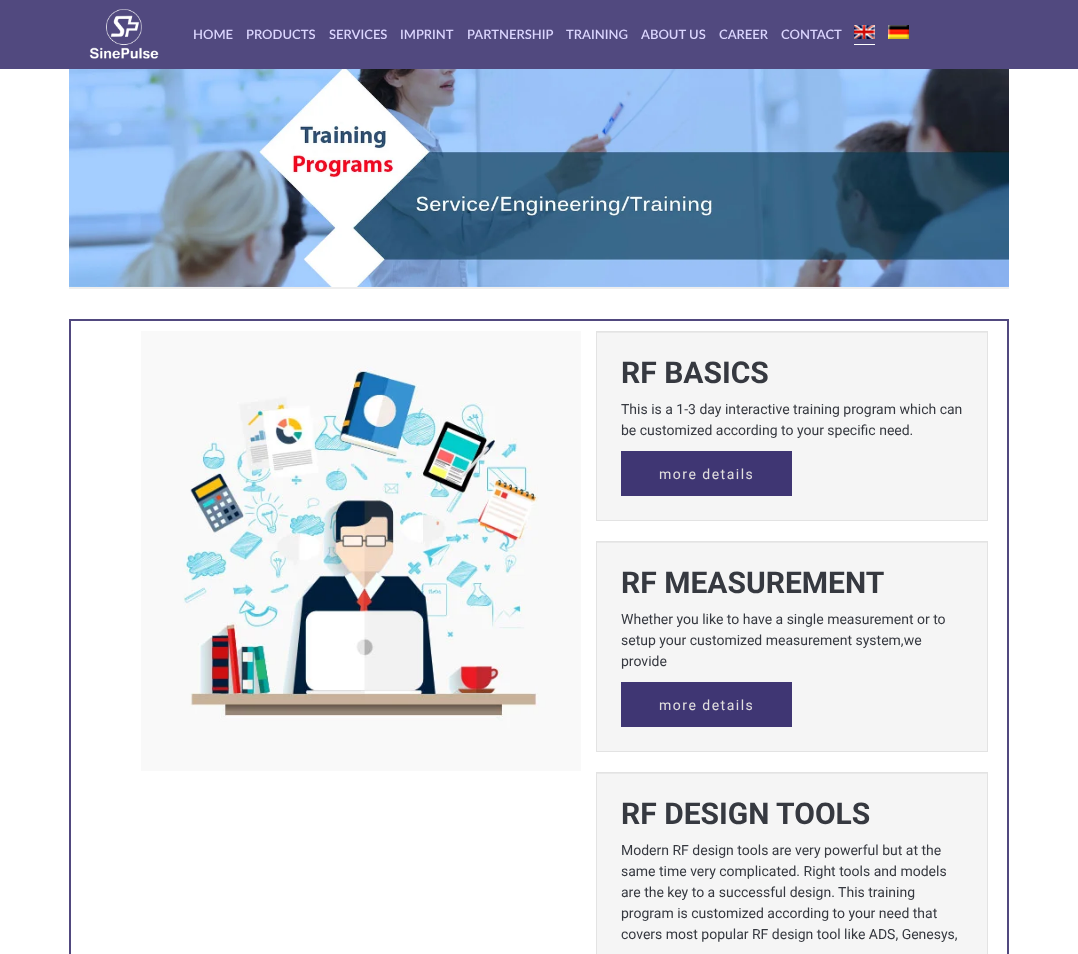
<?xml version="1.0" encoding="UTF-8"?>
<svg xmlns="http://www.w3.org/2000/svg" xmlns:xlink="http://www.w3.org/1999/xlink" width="1078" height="954">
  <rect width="100%" height="100%" fill="#ffffff" />
  <rect width="1078" height="69" fill="#51497f" />
  <image x="89" y="9" width="70" height="50" xlink:href="image1.png" />
  <image x="854" y="25" width="21" height="14" xlink:href="image2.png" />
  <rect x="854" y="44" width="21" height="1" fill="#ffffff" />
  <image x="888" y="25" width="21" height="14" xlink:href="image3.png" />
  <rect x="69" y="287" width="940" height="2" fill="#eeeeee" />
  <image x="69" y="69" width="940" height="218" xlink:href="image4.png" />
  <rect x="70" y="320" width="938" height="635" fill="none" stroke="#51497f" stroke-width="2" />
  <image x="141" y="331" width="440" height="440" xlink:href="image5.png" />
  <rect x="597" y="333" width="390" height="187" fill="#f5f5f5" />
  <rect x="597" y="332" width="390" height="1" fill="#e9e9e9" />
  <rect x="596.5" y="331.5" width="391" height="189" fill="none" stroke="#e3e3e3" />
  <rect x="621" y="451" width="171" height="45" fill="#3f3673" />
  <rect x="597" y="543" width="390" height="208" fill="#f5f5f5" />
  <rect x="597" y="542" width="390" height="1" fill="#e9e9e9" />
  <rect x="596.5" y="541.5" width="391" height="210" fill="none" stroke="#e3e3e3" />
  <rect x="621" y="682" width="171" height="45" fill="#3f3673" />
  <rect x="597" y="774" width="390" height="180" fill="#f5f5f5" />
  <rect x="597" y="773" width="390" height="1" fill="#e9e9e9" />
  <rect x="596.5" y="772.5" width="391" height="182" fill="none" stroke="#e3e3e3" />
  <text x="193" y="39" style="font-family: Lato; font-size: 13px; font-weight: 600; fill: #dbd5fe">HOME</text>
  <text x="246" y="39" style="font-family: Lato; font-size: 13px; font-weight: 600; fill: #dbd5fe">PRODUCTS</text>
  <text x="329" y="39" style="font-family: Lato; font-size: 13px; font-weight: 600; fill: #dbd5fe">SERVICES</text>
  <text x="400" y="39" style="font-family: Lato; font-size: 13px; font-weight: 600; fill: #dbd5fe">IMPRINT</text>
  <text x="467" y="39" style="font-family: Lato; font-size: 13px; font-weight: 600; fill: #dbd5fe">PARTNERSHIP</text>
  <text x="566" y="39" style="font-family: Lato; font-size: 13px; font-weight: 600; fill: #dbd5fe">TRAINING</text>
  <text x="641" y="39" style="font-family: Lato; font-size: 13px; font-weight: 600; fill: #dbd5fe">ABOUT US</text>
  <text x="719" y="39" style="font-family: Lato; font-size: 13px; font-weight: 600; fill: #dbd5fe">CAREER</text>
  <text x="781" y="39" style="font-family: Lato; font-size: 13px; font-weight: 600; fill: #dbd5fe">CONTACT</text>
  <text x="621" y="383" style="font-family: Roboto; font-size: 30px; font-weight: bold; fill: #363940">RF BASICS</text>
  <text x="621" y="414" style="font-family: Roboto; font-size: 14px; fill: #363940">This is a 1-3 day interactive training program which can</text>
  <text x="621" y="435" style="font-family: Roboto; font-size: 14px; fill: #363940">be customized according to your specific need.</text>
  <text x="659" y="479" style="font-family: Roboto; font-size: 14px; letter-spacing: 1.5px; fill: #e2dfdf">more details</text>
  <text x="621" y="593" style="font-family: Roboto; font-size: 30px; font-weight: bold; fill: #363940">RF MEASUREMENT</text>
  <text x="621" y="624" style="font-family: Roboto; font-size: 14px; fill: #363940">Whether you like to have a single measurement or to</text>
  <text x="621" y="645" style="font-family: Roboto; font-size: 14px; fill: #363940">setup your customized measurement system,we</text>
  <text x="621" y="666" style="font-family: Roboto; font-size: 14px; fill: #363940">provide</text>
  <text x="659" y="710" style="font-family: Roboto; font-size: 14px; letter-spacing: 1.5px; fill: #e2dfdf">more details</text>
  <text x="621" y="824" style="font-family: Roboto; font-size: 30px; font-weight: bold; fill: #363940">RF DESIGN TOOLS</text>
  <text x="621" y="855" style="font-family: Roboto; font-size: 14px; fill: #363940">Modern RF design tools are very powerful but at the</text>
  <text x="621" y="876" style="font-family: Roboto; font-size: 14px; fill: #363940">same time very complicated. Right tools and models</text>
  <text x="621" y="897" style="font-family: Roboto; font-size: 14px; fill: #363940">are the key to a successful design. This training</text>
  <text x="621" y="918" style="font-family: Roboto; font-size: 14px; fill: #363940">program is customized according to your need that</text>
  <text x="621" y="939" style="font-family: Roboto; font-size: 14px; fill: #363940">covers most popular RF design tool like ADS, Genesys,</text>
</svg>
